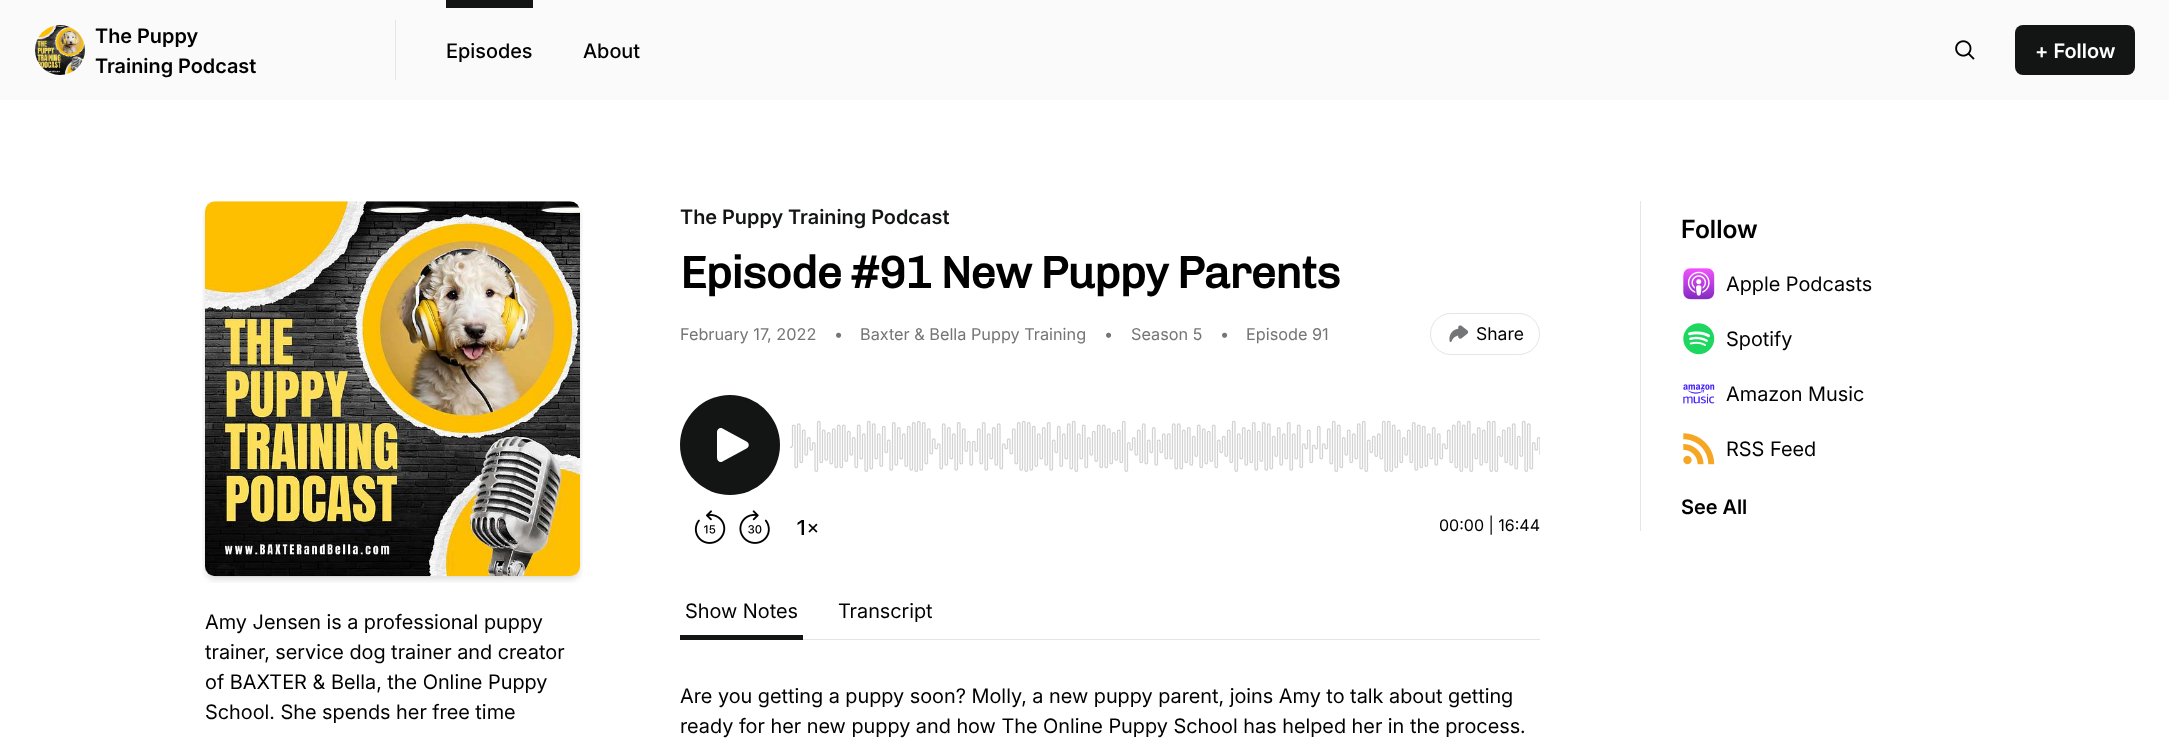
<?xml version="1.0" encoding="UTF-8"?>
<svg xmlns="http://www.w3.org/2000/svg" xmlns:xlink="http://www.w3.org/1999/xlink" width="2169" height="739">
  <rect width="100%" height="100%" fill="#ffffff" />
  <rect width="2169" height="100" fill="#fafafa" />
  <rect x="395" y="20" width="1" height="60" fill="#e4e5e6" />
  <image x="35" y="25" width="50" height="50" xlink:href="image1.png" />
  <rect x="446" width="87" height="8" fill="#131414" />
  <image x="1955" y="40" width="20" height="20" xlink:href="image2.png" />
  <rect x="2015" y="25" width="120" height="50" rx="8" fill="#131414" />
  <rect x="1430.5" y="313.5" width="109" height="41" rx="20.5" fill="none" stroke="#e4e5e6" />
  <image x="1449" y="325" width="20" height="17" xlink:href="image3.png" />
  <image x="694" y="510" width="32" height="34" xlink:href="image4.png" />
  <image x="739" y="510" width="31" height="34" xlink:href="image5.png" />
  <image x="797" y="520" width="21" height="15" xlink:href="image6.png" />
  <circle cx="730" cy="445" r="50" fill="#131414" />
  <path d="M 717 432 c 0 -3 3 -5 5.5 -3.5 l 24 13 c 3 1.5 3 5.5 0 7 l -24 13 c -2.5 1.5 -5.5 -0.5 -5.5 -3.5 z" fill="#ffffff" fill-rule="evenodd" />
  <image x="790" y="420" width="750" height="52" xlink:href="image7.png" />
  <rect x="803" y="639" width="737" height="1" fill="#e4e5e6" />
  <rect x="680" y="635" width="123" height="5" fill="#131414" />
  <rect x="1640" y="201" width="1" height="330" fill="#e4e5e6" />
  <image x="1683" y="268" width="32" height="32" xlink:href="image8.png" />
  <image x="1683" y="323" width="32" height="32" xlink:href="image9.png" />
  <image x="1683" y="384" width="32" height="20" xlink:href="image10.png" />
  <image x="1683" y="433" width="32" height="32" xlink:href="image11.png" />
  <image x="202" y="201" width="381" height="382" xlink:href="image12.png" />
  <text x="95" y="43" style="font-family: Inter; font-size: 20px; font-weight: 600; fill: #000000">The Puppy</text>
  <text x="95" y="73" style="font-family: Inter; font-size: 20px; font-weight: 600; fill: #000000">Training Podcast</text>
  <text x="446" y="58" style="font-family: Inter; font-size: 20px; font-weight: 500; fill: #000000">Episodes</text>
  <text x="583" y="58" style="font-family: Inter; font-size: 20px; font-weight: 500; fill: #000000">About</text>
  <text x="2035" y="58" style="font-family: Inter; font-size: 20px; font-weight: 600; fill: #ffffff">+ Follow</text>
  <text x="680" y="224" style="font-family: Inter; font-size: 20px; font-weight: 600; fill: #131414">The Puppy Training Podcast</text>
  <text x="680" y="288" style="font-family: Chivo; font-size: 45px; font-weight: bold; letter-spacing: -1.1px; fill: #000000">Episode #91 New Puppy Parents</text>
  <text x="680" y="340" style="font-family: Inter; font-size: 16.25px; fill: #747576">February 17, 2022</text>
  <text x="834" y="340" style="font-family: Inter; font-size: 16.25px; fill: #747576">•</text>
  <text x="860" y="340" style="font-family: Inter; font-size: 16.25px; fill: #747576">Baxter &amp; Bella Puppy Training</text>
  <text x="1104" y="340" style="font-family: Inter; font-size: 16.25px; fill: #747576">•</text>
  <text x="1131" y="340" style="font-family: Inter; font-size: 16.25px; fill: #747576">Season 5</text>
  <text x="1220" y="340" style="font-family: Inter; font-size: 16.25px; fill: #747576">•</text>
  <text x="1246" y="340" style="font-family: Inter; font-size: 16.25px; fill: #747576">Episode 91</text>
  <text x="1476" y="340" style="font-family: Inter; font-size: 17.5px; fill: #000000">Share</text>
  <text x="1439" y="531" style="font-family: Inter; font-size: 16px; fill: #000000">00:00 | 16:44</text>
  <text x="685" y="618" style="font-family: 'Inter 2'; font-size: 20px; fill: #000000">Show Notes</text>
  <text x="838" y="618" style="font-family: 'Inter 2'; font-size: 20px; fill: #000000">Transcript</text>
  <text x="680" y="703" style="font-family: 'Inter 2'; font-size: 20px; fill: #000000">Are you getting a puppy soon? Molly, a new puppy parent, joins Amy to talk about getting</text>
  <text x="680" y="733" style="font-family: 'Inter 2'; font-size: 20px; fill: #000000">ready for her new puppy and how The Online Puppy School has helped her in the process.</text>
  <text x="1681" y="238" style="font-family: 'Inter 2'; font-size: 25px; font-weight: 600; fill: #000000">Follow</text>
  <text x="1726" y="291" style="font-family: 'Inter 2'; font-size: 20px; fill: #000000">Apple Podcasts</text>
  <text x="1726" y="346" style="font-family: 'Inter 2'; font-size: 20px; fill: #000000">Spotify</text>
  <text x="1726" y="401" style="font-family: 'Inter 2'; font-size: 20px; fill: #000000">Amazon Music</text>
  <text x="1726" y="456" style="font-family: 'Inter 2'; font-size: 20px; fill: #000000">RSS Feed</text>
  <text x="1681" y="514" style="font-family: Inter; font-size: 20px; font-weight: 600; fill: #000000">See All</text>
  <text x="205" y="629" style="font-family: 'Inter 2'; font-size: 20px; fill: #000000">Amy Jensen is a professional puppy</text>
  <text x="205" y="659" style="font-family: 'Inter 2'; font-size: 20px; fill: #000000">trainer, service dog trainer and creator</text>
  <text x="205" y="689" style="font-family: 'Inter 2'; font-size: 20px; fill: #000000">of BAXTER &amp; Bella, the Online Puppy</text>
  <text x="205" y="719" style="font-family: 'Inter 2'; font-size: 20px; fill: #000000">School. She spends her free time</text>
</svg>
